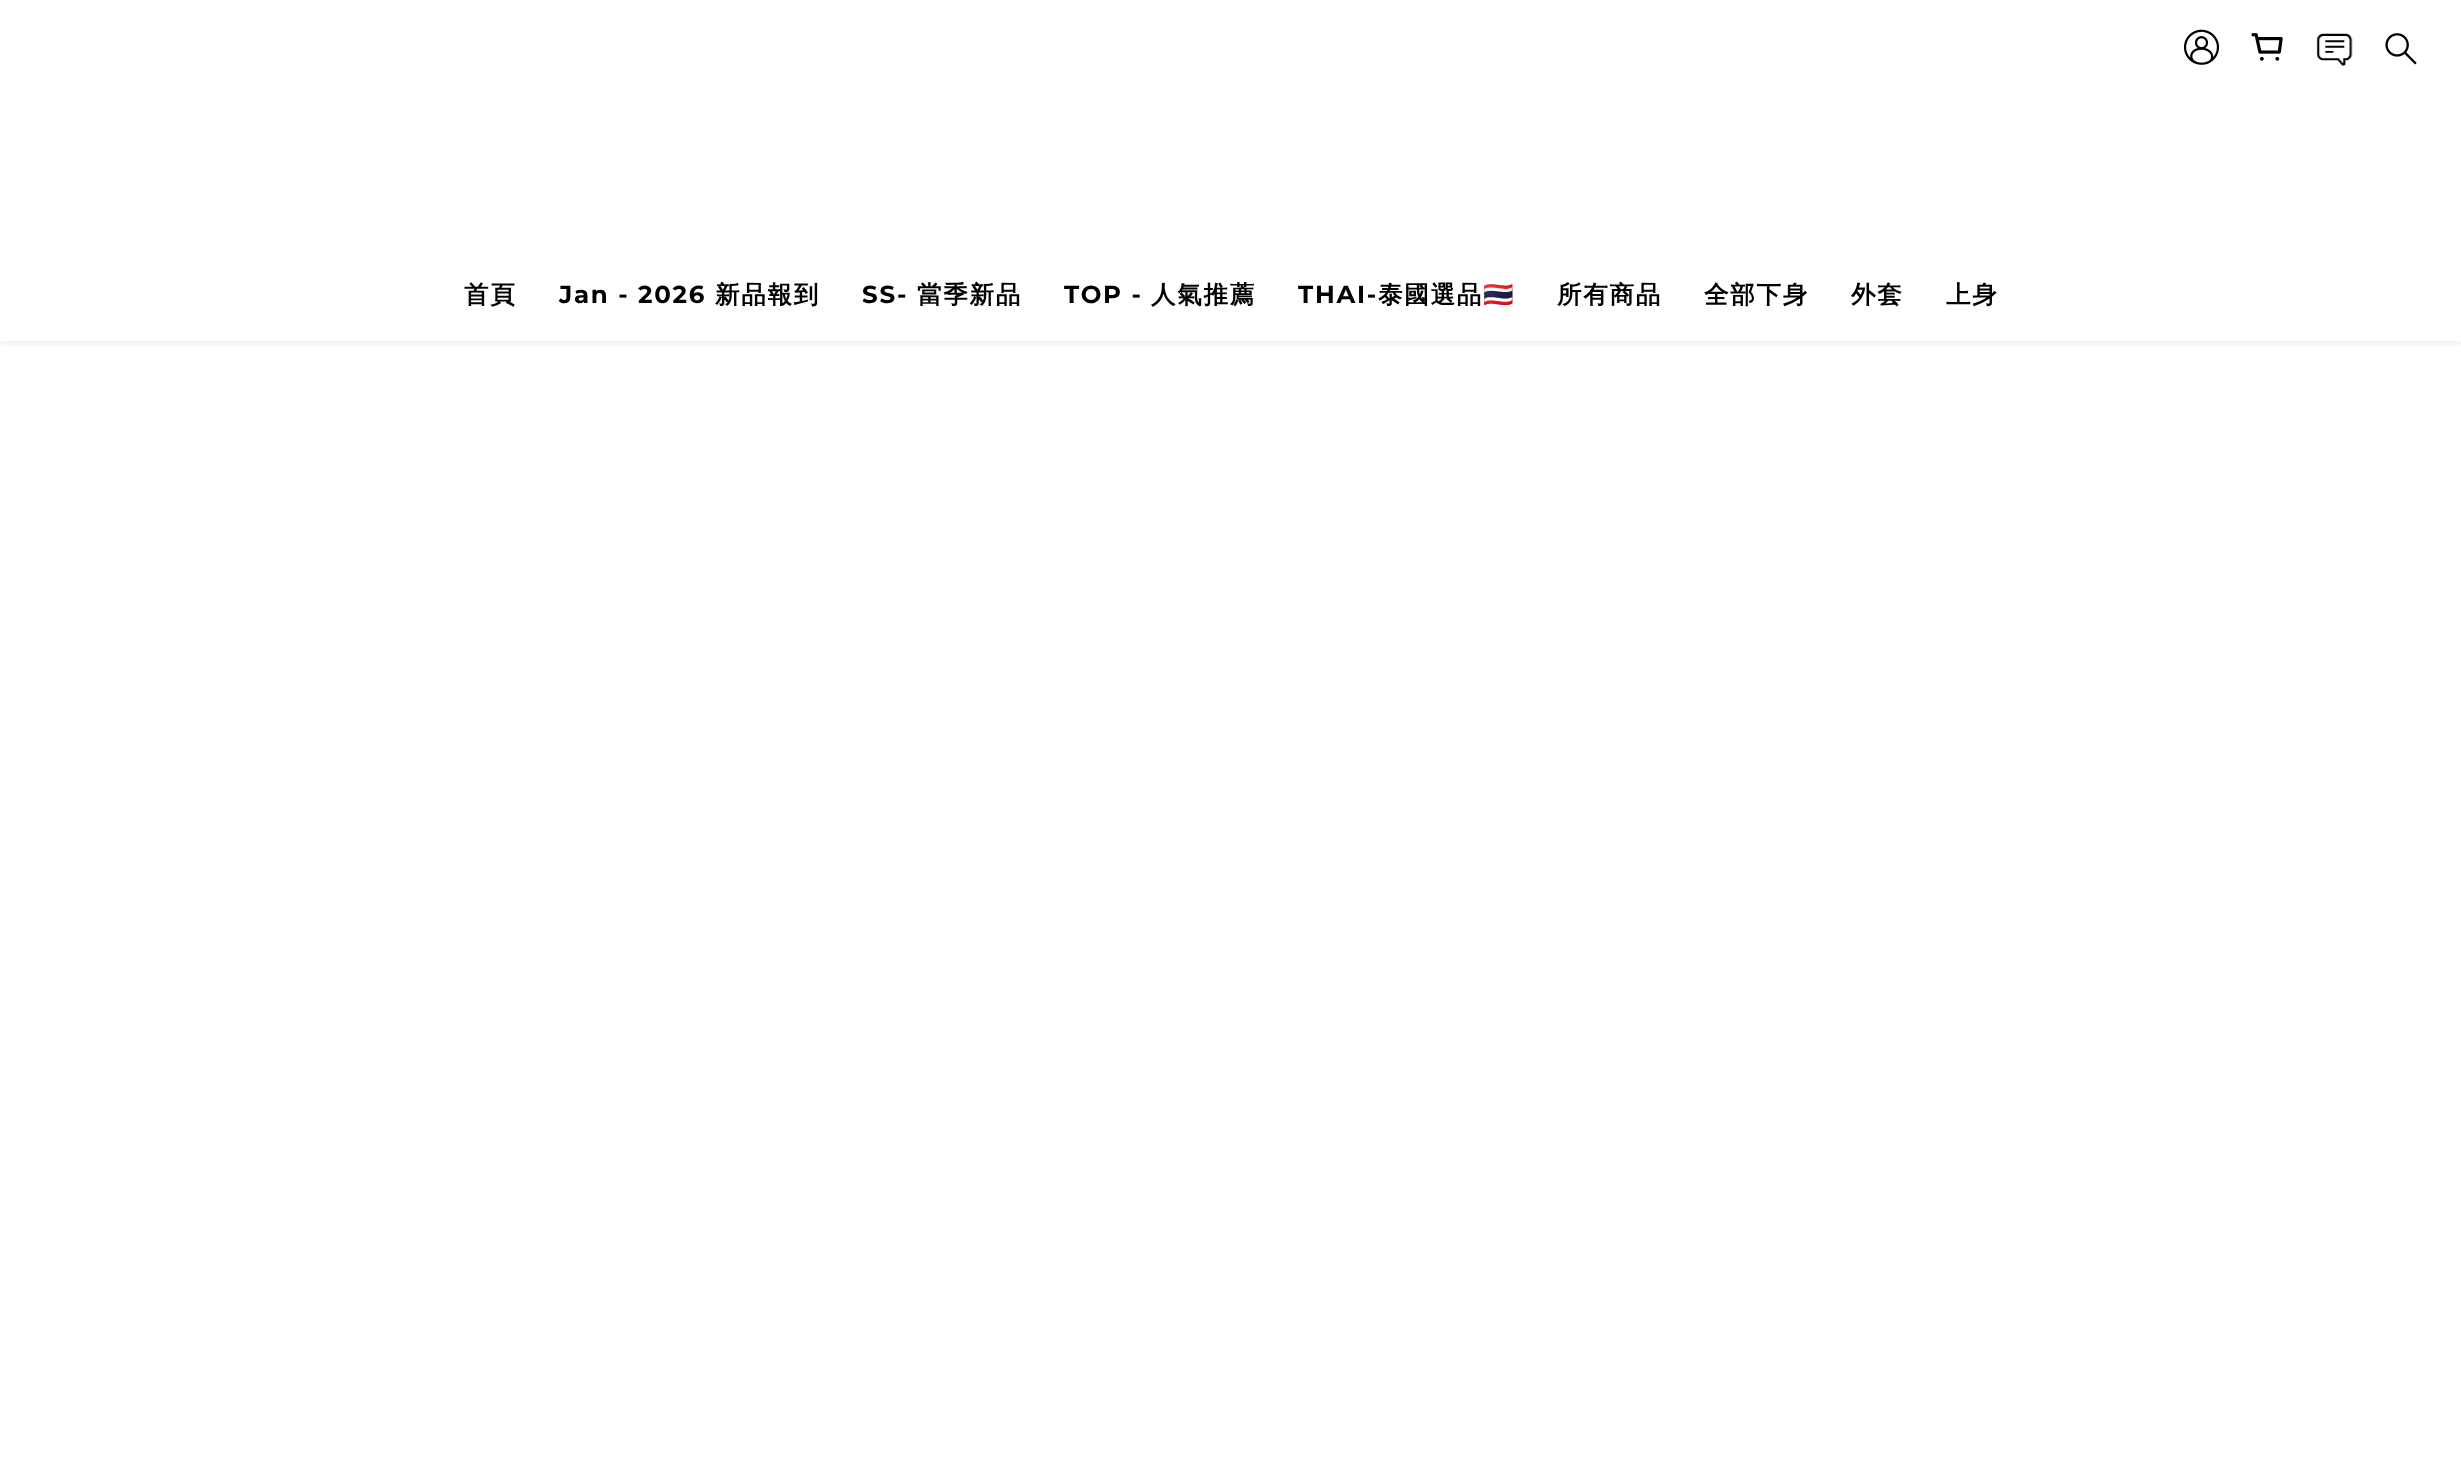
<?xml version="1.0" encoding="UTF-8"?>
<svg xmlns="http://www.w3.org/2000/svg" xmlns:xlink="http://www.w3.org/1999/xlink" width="2461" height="1474">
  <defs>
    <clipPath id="clip1"><rect x="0" y="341" width="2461" height="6" /></clipPath>
  </defs>
  <rect width="100%" height="100%" fill="#ffffff" />
  <g clip-path="url(#clip1)">
    <rect y="4" width="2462" height="341" fill="#000000" fill-opacity="0.06" filter="blur(5px)" />
  </g>
  <image x="2183" y="29" width="37" height="36" xlink:href="image1.png" />
  <image x="2251" y="33" width="32" height="28" xlink:href="image2.png" />
  <image x="2316" y="33" width="37" height="33" xlink:href="image3.png" />
  <image x="2385" y="33" width="32" height="32" xlink:href="image4.png" />
  <text x="464" y="303" style="font-family: WenQuanYi Zen Hei; font-size: 24.5px; font-weight: bold; letter-spacing: 1.75px; fill: #000000">首頁</text>
  <text x="559" y="303" style="font-family: Montserrat; font-size: 24.5px; font-weight: bold; letter-spacing: 1.75px; fill: #000000">Jan - 2026</text>
  <text x="715" y="303" style="font-family: WenQuanYi Zen Hei; font-size: 24.5px; font-weight: bold; letter-spacing: 1.75px; fill: #000000">新品報到</text>
  <text x="862" y="303" style="font-family: Montserrat; font-size: 24.5px; font-weight: bold; letter-spacing: 1.75px; fill: #000000">SS-</text>
  <text x="917" y="303" style="font-family: WenQuanYi Zen Hei; font-size: 24.5px; font-weight: bold; letter-spacing: 1.75px; fill: #000000">當季新品</text>
  <text x="1064" y="303" style="font-family: Montserrat; font-size: 24.5px; font-weight: bold; letter-spacing: 1.75px; fill: #000000">TOP -</text>
  <text x="1151" y="303" style="font-family: WenQuanYi Zen Hei; font-size: 24.5px; font-weight: bold; letter-spacing: 1.75px; fill: #000000">人氣推薦</text>
  <text x="1298" y="303" style="font-family: Montserrat; font-size: 24.5px; font-weight: bold; letter-spacing: 1.75px; fill: #000000">THAI-</text>
  <text x="1378" y="303" style="font-family: WenQuanYi Zen Hei; font-size: 24.5px; font-weight: bold; letter-spacing: 1.75px; fill: #000000">泰國選品</text>
  <text x="1483" y="303" style="font-family: Noto Color Emoji; font-size: 24.5px; font-weight: bold; letter-spacing: 1.75px; fill: #000000">🇹🇭</text>
  <text x="1557" y="303" style="font-family: WenQuanYi Zen Hei; font-size: 24.5px; font-weight: bold; letter-spacing: 1.75px; fill: #000000">所有商品</text>
  <text x="1704" y="303" style="font-family: WenQuanYi Zen Hei; font-size: 24.5px; font-weight: bold; letter-spacing: 1.75px; fill: #000000">全部下身</text>
  <text x="1851" y="303" style="font-family: WenQuanYi Zen Hei; font-size: 24.5px; font-weight: bold; letter-spacing: 1.75px; fill: #000000">外套</text>
  <text x="1946" y="303" style="font-family: WenQuanYi Zen Hei; font-size: 24.5px; font-weight: bold; letter-spacing: 1.75px; fill: #000000">上身</text>
</svg>
